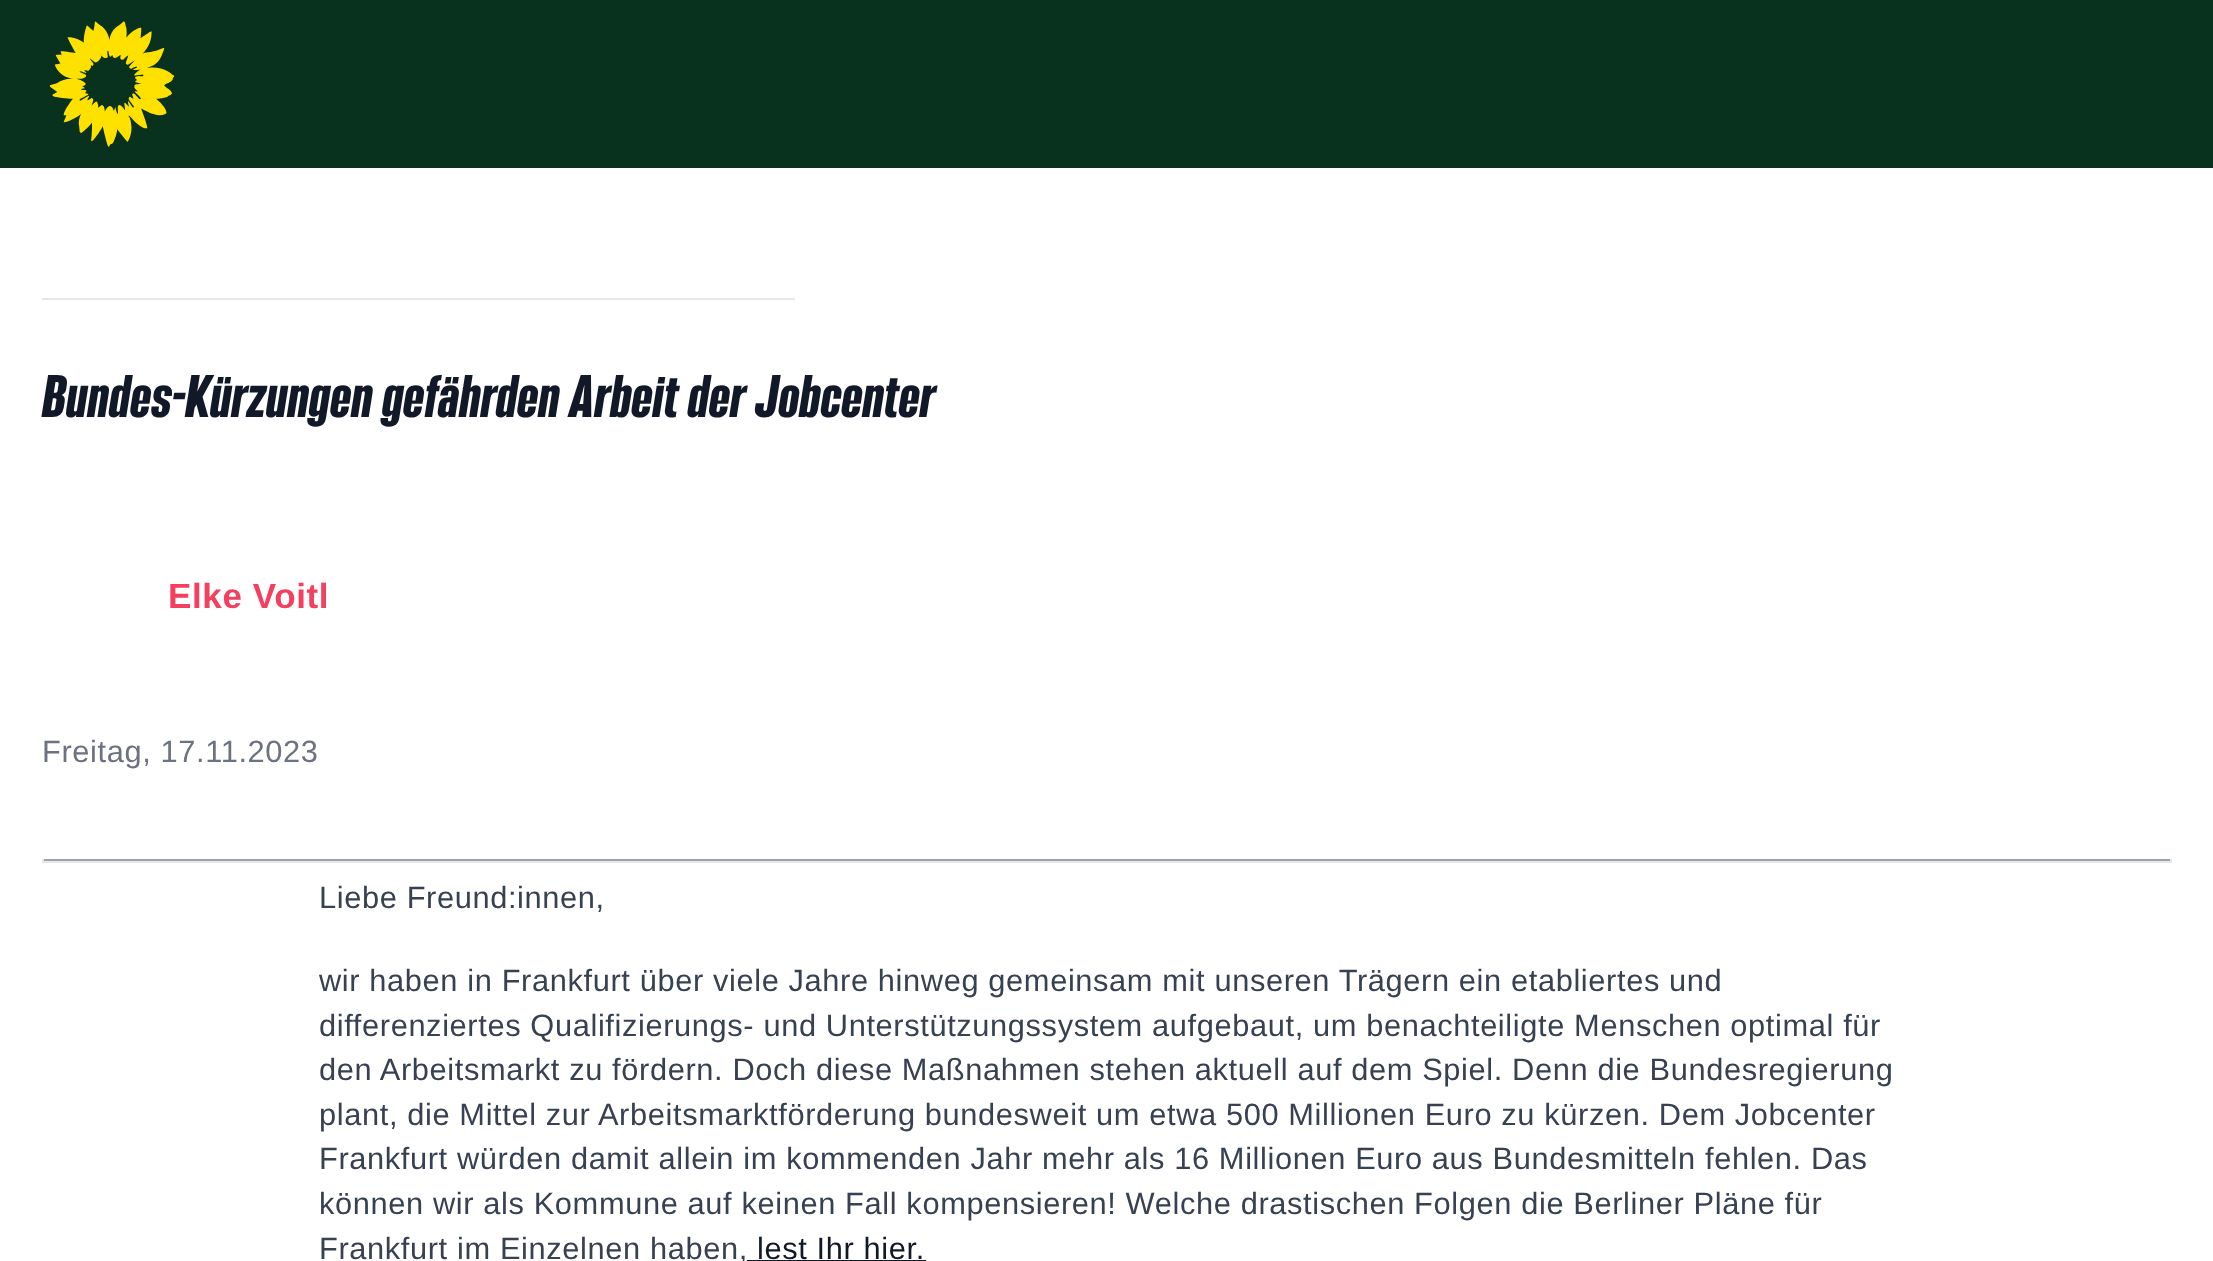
<?xml version="1.0" encoding="UTF-8"?>
<svg xmlns="http://www.w3.org/2000/svg" xmlns:xlink="http://www.w3.org/1999/xlink" width="2213" height="1261">
  <rect width="100%" height="100%" fill="#ffffff" />
  <rect width="2213" height="168" fill="#09321e" />
  <image x="49" y="21" width="126" height="126" xlink:href="image1.png" />
  <rect x="42" y="298" width="753" height="2" fill="#e5e7eb" />
  <rect x="42" y="859" width="2130" height="2" fill="#9ca3af" />
  <rect x="2170" y="859" width="2" height="4" fill="#e5e7eb" />
  <rect x="42" y="861" width="2130" height="2" fill="#e5e7eb" />
  <rect x="42" y="859" width="2" height="4" fill="#e5e7eb" />
  <rect x="747" y="1260" width="179" height="1" fill="#111827" />
  <text x="42" y="417" style="font-family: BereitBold; font-size: 52.5px; font-weight: bold; fill: #111827">Bundes-Kürzungen gefährden Arbeit der Jobcenter</text>
  <text x="168" y="608" style="font-family: Liberation Sans; font-size: 35px; font-weight: bold; letter-spacing: 0.62px; fill: #f43f5e">Elke Voitl</text>
  <text x="42" y="762" style="font-family: Liberation Sans; font-size: 30.8px; letter-spacing: 0.62px; fill: #6b7280">Freitag, 17.11.2023</text>
  <text x="319" y="908" style="font-family: Liberation Sans; font-size: 30.8px; letter-spacing: 0.62px; fill: #374151">Liebe Freund:innen,</text>
  <text x="319" y="991" style="font-family: Liberation Sans; font-size: 30.8px; letter-spacing: 0.62px; fill: #374151">wir haben in Frankfurt über viele Jahre hinweg gemeinsam mit unseren Trägern ein etabliertes und</text>
  <text x="319" y="1036" style="font-family: Liberation Sans; font-size: 30.8px; letter-spacing: 0.62px; fill: #374151">differenziertes Qualifizierungs- und Unterstützungssystem aufgebaut, um benachteiligte Menschen optimal für</text>
  <text x="319" y="1080" style="font-family: Liberation Sans; font-size: 30.8px; letter-spacing: 0.62px; fill: #374151">den Arbeitsmarkt zu fördern. Doch diese Maßnahmen stehen aktuell auf dem Spiel. Denn die Bundesregierung</text>
  <text x="319" y="1125" style="font-family: Liberation Sans; font-size: 30.8px; letter-spacing: 0.62px; fill: #374151">plant, die Mittel zur Arbeitsmarktförderung bundesweit um etwa 500 Millionen Euro zu kürzen. Dem Jobcenter</text>
  <text x="319" y="1169" style="font-family: Liberation Sans; font-size: 30.8px; letter-spacing: 0.62px; fill: #374151">Frankfurt würden damit allein im kommenden Jahr mehr als 16 Millionen Euro aus Bundesmitteln fehlen. Das</text>
  <text x="319" y="1214" style="font-family: Liberation Sans; font-size: 30.8px; letter-spacing: 0.62px; fill: #374151">können wir als Kommune auf keinen Fall kompensieren! Welche drastischen Folgen die Berliner Pläne für</text>
  <text x="319" y="1259" style="font-family: Liberation Sans; font-size: 30.8px; letter-spacing: 0.62px; fill: #374151">Frankfurt im Einzelnen haben,</text>
  <text x="757" y="1259" style="font-family: Liberation Sans; font-size: 30.8px; letter-spacing: 0.62px; fill: #111827">lest Ihr hier.</text>
</svg>
